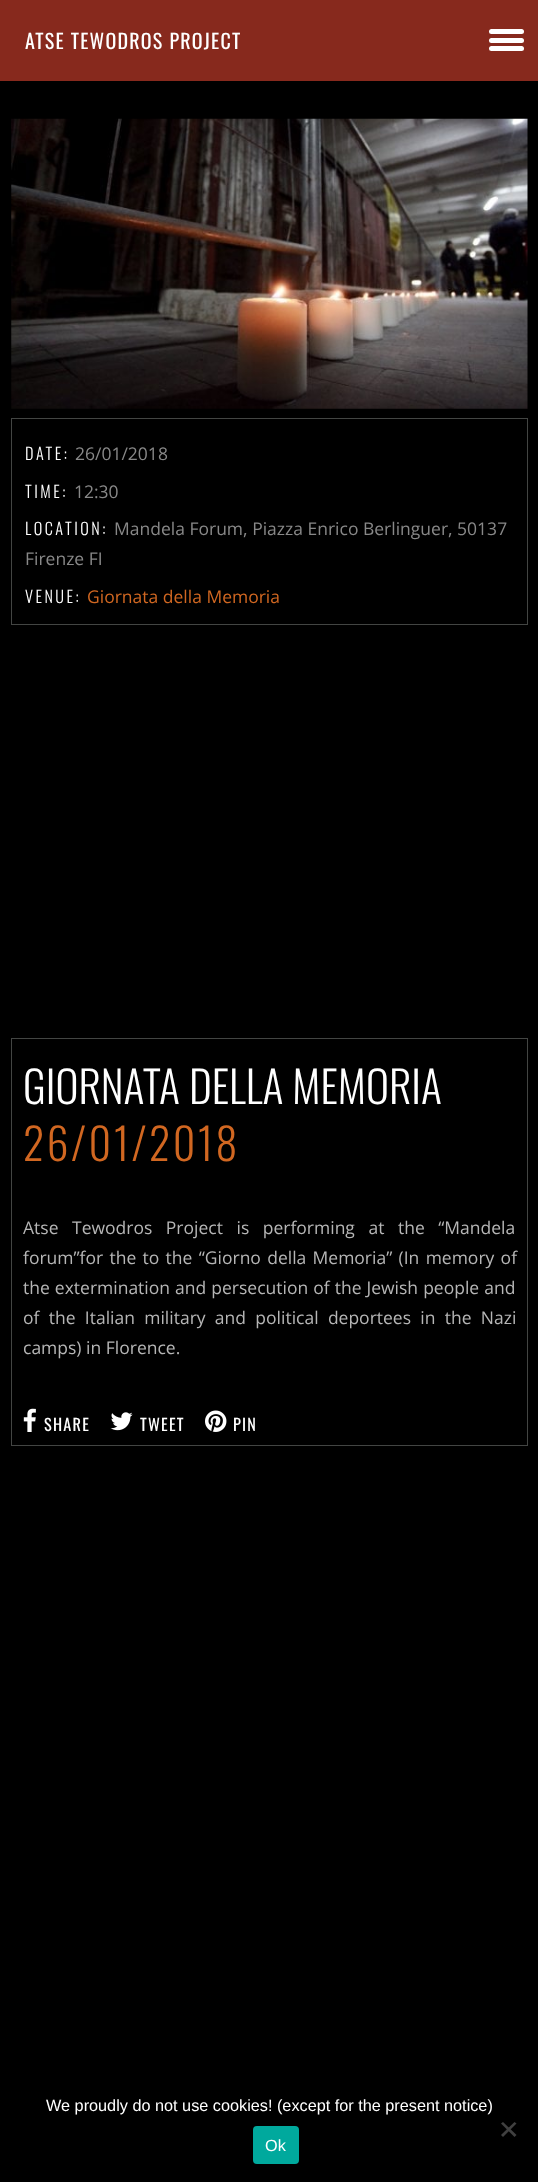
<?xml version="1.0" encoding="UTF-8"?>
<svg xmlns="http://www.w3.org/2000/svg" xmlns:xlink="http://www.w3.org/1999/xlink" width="538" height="2182">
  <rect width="100%" height="100%" fill="#000000" />
  <rect width="538" height="81" fill="#87291d" />
  <rect x="489" y="29" width="35" height="5" rx="2.5" fill="#ffffff" />
  <rect x="489" y="38" width="35" height="5" rx="2.5" fill="#ffffff" />
  <rect x="489" y="46" width="35" height="5" rx="2.5" fill="#ffffff" />
  <image x="11" y="118" width="517" height="291" xlink:href="image1.png" />
  <rect x="11.5" y="418.5" width="516" height="206" fill="none" stroke="#434543" />
  <rect x="11.5" y="1038.5" width="516" height="407" fill="none" stroke="#434543" />
  <image x="23" y="1408" width="13" height="24" xlink:href="image2.png" />
  <image x="110" y="1412" width="23" height="19" xlink:href="image3.png" />
  <image x="205" y="1410" width="22" height="22" xlink:href="image4.png" />
  <path d="M 514.5 2122 l 2 1.5 l -13.5 13.5 l -2 -2 z" fill="#404040" />
  <path d="M 501 2123.5 l 2 -1.5 l 13.5 13 l -2 2 z" fill="#404040" />
  <rect x="253" y="2126" width="46" height="38" rx="4" fill="#00a99d" />
  <text x="25" y="49" style="font-family: Oswald; font-size: 20px; letter-spacing: 1.25px; fill: #ffffff">ATSE TEWODROS PROJECT</text>
  <text x="25" y="460" style="font-family: Oswald; font-size: 16.25px; font-weight: 300; letter-spacing: 2.5px; fill: #ffffff">DATE:</text>
  <text x="75" y="460" style="font-family: Open Sans; font-size: 17.5px; fill: #888888">26/01/2018</text>
  <text x="25" y="498" style="font-family: Oswald; font-size: 16.25px; font-weight: 300; letter-spacing: 2.5px; fill: #ffffff">TIME:</text>
  <text x="74" y="498" style="font-family: Open Sans; font-size: 17.5px; fill: #888888">12:30</text>
  <text x="25" y="535" style="font-family: Oswald; font-size: 16.25px; font-weight: 300; letter-spacing: 2.5px; fill: #ffffff">LOCATION:</text>
  <text x="114" y="535" style="font-family: Open Sans; font-size: 17.5px; fill: #888888">Mandela Forum, Piazza Enrico Berlinguer, 50137</text>
  <text x="25" y="565" style="font-family: Open Sans; font-size: 17.5px; fill: #888888">Firenze FI</text>
  <text x="25" y="603" style="font-family: Oswald; font-size: 16.25px; font-weight: 300; letter-spacing: 2.5px; fill: #ffffff">VENUE:</text>
  <text x="87" y="603" style="font-family: Open Sans; font-size: 17.5px; fill: #d16721">Giornata della Memoria</text>
  <text x="23" y="1104" style="font-family: Oswald; font-size: 43.75px; font-weight: 300; fill: #ffffff">GIORNATA DELLA MEMORIA</text>
  <text x="23" y="1161" style="font-family: Oswald; font-size: 43.75px; font-weight: 300; letter-spacing: 2.5px; fill: #d16721">26/01/2018</text>
  <text x="23" y="1234" word-spacing="9" style="font-family: Open Sans; font-size: 17.5px; fill: #b6b6b6">Atse Tewodros Project is performing at the “Mandela</text>
  <text x="23" y="1264" word-spacing="1.75" style="font-family: Open Sans; font-size: 17.5px; fill: #b6b6b6">forum”for the to the “Giorno della Memoria” (In memory of</text>
  <text x="23" y="1294" word-spacing="0.5" style="font-family: Open Sans; font-size: 17.5px; fill: #b6b6b6">the extermination and persecution of the Jewish people and</text>
  <text x="23" y="1324" word-spacing="4.75" style="font-family: Open Sans; font-size: 17.5px; fill: #b6b6b6">of the Italian military and political deportees in the Nazi</text>
  <text x="23" y="1354" style="font-family: Open Sans; font-size: 17.5px; fill: #b6b6b6">camps) in Florence.</text>
  <text x="44" y="1431" style="font-family: Oswald; font-size: 16.25px; letter-spacing: 1.25px; fill: #ffffff">SHARE</text>
  <text x="140" y="1431" style="font-family: Oswald; font-size: 16.25px; letter-spacing: 1.25px; fill: #ffffff">TWEET</text>
  <text x="233" y="1431" style="font-family: Oswald; font-size: 16.25px; letter-spacing: 1.25px; fill: #ffffff">PIN</text>
  <text x="46" y="2111" style="font-family: Liberation Sans; font-size: 16.25px; fill: #ffffff">We proudly do not use cookies! (except for the present notice)</text>
  <text x="265" y="2151" style="font-family: Liberation Sans; font-size: 16.25px; fill: #ffffff">Ok</text>
</svg>
